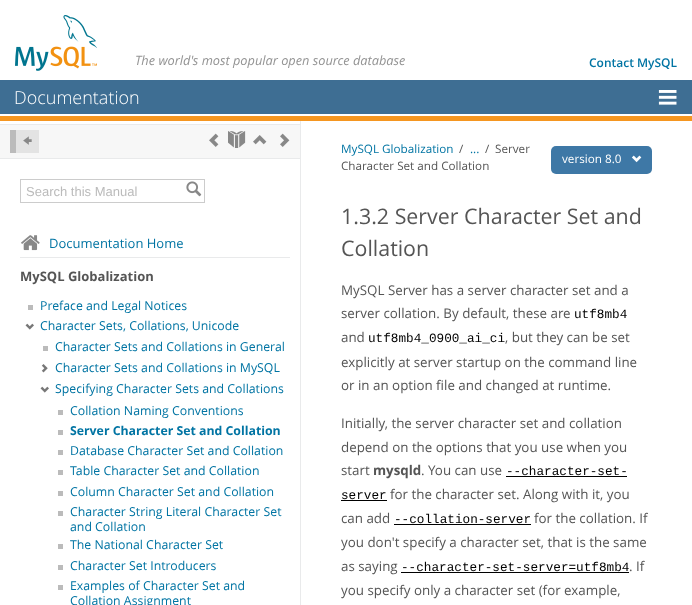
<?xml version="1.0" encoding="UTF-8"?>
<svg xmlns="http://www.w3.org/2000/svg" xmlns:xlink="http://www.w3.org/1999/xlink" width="692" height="605">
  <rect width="100%" height="100%" fill="#ffffff" />
  <image x="15" y="15" width="82" height="56" xlink:href="image1.png" />
  <rect y="80" width="692" height="34" fill="#3e6e93" />
  <image x="658" y="90" width="19" height="15" xlink:href="image2.png" />
  <rect y="116" width="692" height="5" fill="#f59620" />
  <rect x="300" y="121" width="1" height="484" fill="#e9eaeb" />
  <rect y="125" width="300" height="33" fill="#f7f7f7" />
  <rect y="124" width="300" height="1" fill="#e9eaeb" />
  <rect y="158" width="300" height="1" fill="#e9eaeb" />
  <rect x="16" y="130" width="23" height="23" fill="#e3e3e3" />
  <rect x="10" y="130" width="6" height="23" fill="#bbbbbb" />
  <image x="23" y="136" width="9" height="9" xlink:href="image3.png" />
  <image x="209" y="133" width="10" height="14" xlink:href="image4.png" />
  <image x="228" y="131" width="18" height="17" xlink:href="image5.png" />
  <image x="253" y="135" width="14" height="10" xlink:href="image6.png" />
  <image x="280" y="133" width="10" height="14" xlink:href="image7.png" />
  <rect x="20.5" y="179.5" width="184" height="23" fill="none" stroke="#cccccc" />
  <image x="186" y="181" width="16" height="16" xlink:href="image8.png" />
  <image x="21" y="235" width="19" height="16" xlink:href="image9.png" />
  <rect x="20" y="257" width="270" height="1" fill="#e9eaeb" />
  <rect x="28" y="305" width="5" height="5" fill="#bbbbbb" />
  <image x="25" y="323" width="9" height="7" xlink:href="image10.png" />
  <rect x="43" y="346" width="5" height="5" fill="#bbbbbb" />
  <image x="41" y="364" width="7" height="9" xlink:href="image11.png" />
  <image x="40" y="386" width="9" height="7" xlink:href="image10.png" />
  <rect x="58" y="410" width="5" height="5" fill="#bbbbbb" />
  <rect x="58" y="430" width="5" height="5" fill="#bbbbbb" />
  <rect x="58" y="450" width="5" height="5" fill="#bbbbbb" />
  <rect x="58" y="470" width="5" height="5" fill="#bbbbbb" />
  <rect x="58" y="491" width="5" height="5" fill="#bbbbbb" />
  <rect x="58" y="511" width="5" height="5" fill="#bbbbbb" />
  <rect x="58" y="544" width="5" height="5" fill="#bbbbbb" />
  <rect x="58" y="565" width="5" height="5" fill="#bbbbbb" />
  <rect x="58" y="585" width="5" height="5" fill="#bbbbbb" />
  <rect x="551" y="146" width="101" height="28" rx="5" fill="#3e78a6" />
  <image x="631" y="155" width="11" height="8" xlink:href="image12.png" />
  <rect x="506" y="476" width="121" height="1" fill="#000000" />
  <rect x="341" y="500" width="46" height="1" fill="#000000" />
  <rect x="394" y="524" width="137" height="1" fill="#000000" />
  <rect x="401" y="572" width="228" height="1" fill="#000000" />
  <text x="135" y="65" style="font-family: Open Sans; font-size: 12.8px; font-style: italic; fill: #949494">The world's most popular open source database</text>
  <text x="589" y="67" style="font-family: Open Sans; font-size: 12px; font-weight: 600; fill: #0074a3">Contact MySQL</text>
  <text x="14" y="104" style="font-family: Open Sans; font-size: 18px; font-weight: 300; fill: #ffffff">Documentation</text>
  <text x="26" y="196" style="font-family: Liberation Sans; font-size: 13px; fill: #bbbbbb">Search this Manual</text>
  <text x="49" y="248" style="font-family: Open Sans; font-size: 13px; fill: #0074a3">Documentation Home</text>
  <text x="20" y="281" style="font-family: Open Sans; font-size: 13px; font-weight: bold; fill: #555555">MySQL Globalization</text>
  <text x="40" y="310" style="font-family: Open Sans; font-size: 12.3px; fill: #0074a3">Preface and Legal Notices</text>
  <text x="40" y="330" style="font-family: Open Sans; font-size: 12.3px; fill: #0074a3">Character Sets, Collations, Unicode</text>
  <text x="55" y="351" style="font-family: Open Sans; font-size: 12.3px; fill: #0074a3">Character Sets and Collations in General</text>
  <text x="55" y="372" style="font-family: Open Sans; font-size: 12.3px; fill: #0074a3">Character Sets and Collations in MySQL</text>
  <text x="55" y="393" style="font-family: Open Sans; font-size: 12.3px; fill: #0074a3">Specifying Character Sets and Collations</text>
  <text x="70" y="415" style="font-family: Open Sans; font-size: 12.3px; fill: #0074a3">Collation Naming Conventions</text>
  <text x="70" y="435" style="font-family: Open Sans; font-size: 12.3px; font-weight: bold; fill: #0074a3">Server Character Set and Collation</text>
  <text x="70" y="455" style="font-family: Open Sans; font-size: 12.3px; fill: #0074a3">Database Character Set and Collation</text>
  <text x="70" y="475" style="font-family: Open Sans; font-size: 12.3px; fill: #0074a3">Table Character Set and Collation</text>
  <text x="70" y="496" style="font-family: Open Sans; font-size: 12.3px; fill: #0074a3">Column Character Set and Collation</text>
  <text x="70" y="516" style="font-family: Open Sans; font-size: 12.3px; fill: #0074a3">Character String Literal Character Set</text>
  <text x="70" y="531" style="font-family: Open Sans; font-size: 12.3px; fill: #0074a3">and Collation</text>
  <text x="70" y="549" style="font-family: Open Sans; font-size: 12.3px; fill: #0074a3">The National Character Set</text>
  <text x="70" y="570" style="font-family: Open Sans; font-size: 12.3px; fill: #0074a3">Character Set Introducers</text>
  <text x="70" y="590" style="font-family: Open Sans; font-size: 12.3px; fill: #0074a3">Examples of Character Set and</text>
  <text x="70" y="605" style="font-family: Open Sans; font-size: 12.3px; fill: #0074a3">Collation Assignment</text>
  <text x="341" y="153" style="font-family: Open Sans; font-size: 11.7px; fill: #0074a3">MySQL Globalization</text>
  <text x="459" y="153" style="font-family: Open Sans; font-size: 11.7px; fill: #555555">/</text>
  <text x="470" y="153" style="font-family: Open Sans; font-size: 11.7px; fill: #0074a3">...</text>
  <text x="485" y="153" style="font-family: Open Sans; font-size: 11.7px; fill: #555555">/</text>
  <text x="495" y="153" style="font-family: Open Sans; font-size: 11.7px; fill: #555555">Server</text>
  <text x="341" y="170" style="font-family: Open Sans; font-size: 11.7px; fill: #555555">Character Set and Collation</text>
  <text x="562" y="163" style="font-family: Open Sans; font-size: 11.7px; fill: #ffffff">version 8.0</text>
  <text x="341" y="224" style="font-family: Open Sans; font-size: 21.4px; fill: #555555">1.3.2 Server Character Set and</text>
  <text x="341" y="256" style="font-family: Open Sans; font-size: 21.4px; fill: #555555">Collation</text>
  <text x="341" y="295" style="font-family: Open Sans; font-size: 13.35px; fill: #555555">MySQL Server has a server character set and a</text>
  <text x="341" y="318" style="font-family: Open Sans; font-size: 13.35px; fill: #555555">server collation. By default, these are</text>
  <text x="574" y="318" style="font-family: Liberation Mono; font-size: 12.7px; fill: #000000">utf8mb4</text>
  <text x="341" y="342" style="font-family: Open Sans; font-size: 13.35px; fill: #555555">and</text>
  <text x="368" y="342" style="font-family: Liberation Mono; font-size: 12.7px; fill: #000000">utf8mb4_0900_ai_ci</text>
  <text x="505" y="342" style="font-family: Open Sans; font-size: 13.35px; fill: #555555">, but they can be set</text>
  <text x="341" y="367" style="font-family: Open Sans; font-size: 13.35px; fill: #555555">explicitly at server startup on the command line</text>
  <text x="341" y="390" style="font-family: Open Sans; font-size: 13.35px; fill: #555555">or in an option file and changed at runtime.</text>
  <text x="341" y="428" style="font-family: Open Sans; font-size: 13.35px; fill: #555555">Initially, the server character set and collation</text>
  <text x="341" y="452" style="font-family: Open Sans; font-size: 13.35px; fill: #555555">depend on the options that you use when you</text>
  <text x="341" y="475" style="font-family: Open Sans; font-size: 13.35px; fill: #555555">start</text>
  <text x="373" y="475" style="font-family: Open Sans; font-size: 13.35px; font-weight: bold; fill: #555555">mysqld</text>
  <text x="421" y="475" style="font-family: Open Sans; font-size: 13.35px; fill: #555555">. You can use</text>
  <text x="506" y="475" style="font-family: Liberation Mono; font-size: 12.7px; fill: #000000">--character-set-</text>
  <text x="341" y="499" style="font-family: Liberation Mono; font-size: 12.7px; fill: #000000">server</text>
  <text x="390" y="499" style="font-family: Open Sans; font-size: 13.35px; fill: #555555">for the character set. Along with it, you</text>
  <text x="341" y="523" style="font-family: Open Sans; font-size: 13.35px; fill: #555555">can add</text>
  <text x="394" y="523" style="font-family: Liberation Mono; font-size: 12.7px; fill: #000000">--collation-server</text>
  <text x="534" y="523" style="font-family: Open Sans; font-size: 13.35px; fill: #555555">for the collation. If</text>
  <text x="341" y="547" style="font-family: Open Sans; font-size: 13.35px; fill: #555555">you don't specify a character set, that is the same</text>
  <text x="341" y="571" style="font-family: Open Sans; font-size: 13.35px; fill: #555555">as saying</text>
  <text x="401" y="571" style="font-family: Liberation Mono; font-size: 12.7px; fill: #000000">--character-set-server=utf8mb4</text>
  <text x="629" y="571" style="font-family: Open Sans; font-size: 13.35px; fill: #555555">. If</text>
  <text x="341" y="595" style="font-family: Open Sans; font-size: 13.35px; fill: #555555">you specify only a character set (for example,</text>
</svg>
